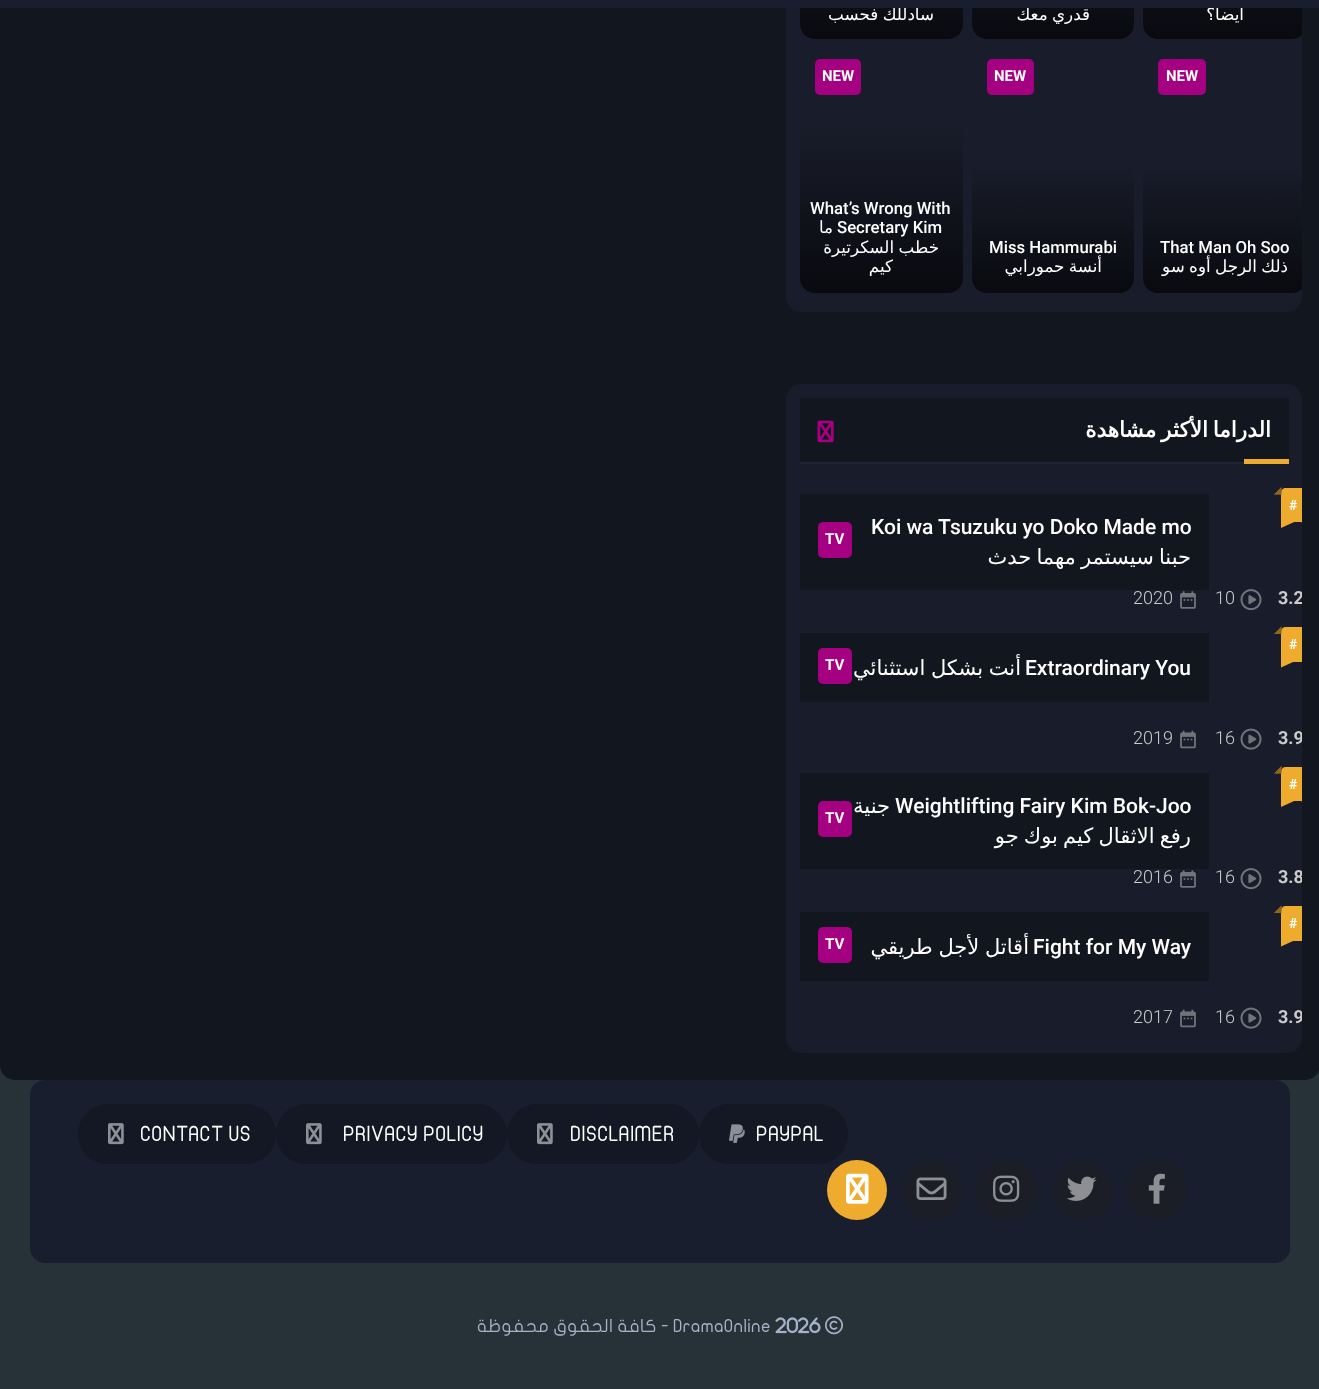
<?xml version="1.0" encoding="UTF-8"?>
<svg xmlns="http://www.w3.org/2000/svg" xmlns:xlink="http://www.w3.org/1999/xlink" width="1319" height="1389">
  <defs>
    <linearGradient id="g1" gradientUnits="userSpaceOnUse" x1="881" y1="-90" x2="881" y2="39"><stop offset="0" stop-color="#191c2a" /><stop offset="1" stop-color="#090a0f" /></linearGradient>
    <linearGradient id="g2" gradientUnits="userSpaceOnUse" x1="1053" y1="-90" x2="1053" y2="39"><stop offset="0" stop-color="#191c2a" /><stop offset="1" stop-color="#090a0f" /></linearGradient>
    <clipPath id="clip1"><rect x="786" y="-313" width="516" height="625" rx="12" /></clipPath>
    <linearGradient id="g3" gradientUnits="userSpaceOnUse" x1="1225" y1="-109" x2="1225" y2="39"><stop offset="0" stop-color="#191c2a" /><stop offset="1" stop-color="#090a0f" /></linearGradient>
    <linearGradient id="g4" gradientUnits="userSpaceOnUse" x1="881" y1="125" x2="881" y2="293"><stop offset="0" stop-color="#191c2a" /><stop offset="1" stop-color="#090a0f" /></linearGradient>
    <linearGradient id="g5" gradientUnits="userSpaceOnUse" x1="1053" y1="164" x2="1053" y2="293"><stop offset="0" stop-color="#191c2a" /><stop offset="1" stop-color="#090a0f" /></linearGradient>
    <linearGradient id="g6" gradientUnits="userSpaceOnUse" x1="1225" y1="164" x2="1225" y2="293"><stop offset="0" stop-color="#191c2a" /><stop offset="1" stop-color="#090a0f" /></linearGradient>
    <clipPath id="clip2"><rect x="786" y="384" width="516" height="669" rx="12" /></clipPath>
  </defs>
  <rect width="100%" height="100%" fill="#263238" />
  <rect y="-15" width="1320" height="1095" rx="15" fill="#12161f" />
  <rect x="786" y="-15" width="516" height="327" rx="15" fill="#191c2a" />
  <path d="M 800 -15 h 163 v 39 c 0 8.5 -6.5 15 -15 15 h -133 c -8.5 0 -15 -6.5 -15 -15 z" fill="url(#g1)" />
  <path d="M 972 -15 h 162 v 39 c 0 8.5 -6.5 15 -15 15 h -132 c -8.5 0 -15 -6.5 -15 -15 z" fill="url(#g2)" />
  <g clip-path="url(#clip1)">
    <path d="M 1143 -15 h 164 v 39 c 0 8.5 -6.5 15 -15 15 h -134 c -8.5 0 -15 -6.5 -15 -15 z" fill="url(#g3)" />
  </g>
  <rect x="815" y="59" width="46" height="36" rx="5" fill="#a50081" />
  <path d="M 800 125 h 163 v 153 c 0 8.5 -6.5 15 -15 15 h -133 c -8.5 0 -15 -6.5 -15 -15 z" fill="url(#g4)" />
  <rect x="987" y="59" width="47" height="36" rx="5" fill="#a50081" />
  <path d="M 972 164 h 162 v 114 c 0 8.5 -6.5 15 -15 15 h -132 c -8.5 0 -15 -6.5 -15 -15 z" fill="url(#g5)" />
  <rect x="1158" y="59" width="48" height="36" rx="5" fill="#a50081" />
  <g clip-path="url(#clip1)">
    <path d="M 1143 164 h 164 v 114 c 0 8.5 -6.5 15 -15 15 h -134 c -8.5 0 -15 -6.5 -15 -15 z" fill="url(#g6)" />
  </g>
  <rect x="786" y="384" width="516" height="669" rx="15" fill="#191c2a" />
  <rect x="800" y="398" width="489" height="64" fill="#12161f" />
  <image x="817" y="420" width="17" height="23" xlink:href="image1.png" />
  <rect x="800" y="462" width="444" height="2" fill="#1f2234" />
  <rect x="1244" y="459" width="45" height="5" fill="#efab2d" />
  <path d="M 1286 488 h 16 v 34 h -21 v -29 c 0 -3 2 -5 5 -5 z" fill="#efab2d" />
  <rect x="800" y="494" width="409" height="96" fill="#12161f" />
  <rect x="818" y="522" width="34" height="36" rx="5" fill="#a50081" />
  <image x="1180" y="591" width="16" height="18" xlink:href="image2.png" />
  <image x="1240" y="589" width="22" height="22" xlink:href="image3.png" />
  <path d="M 1286 627 h 16 v 35 h -21 v -30 c 0 -3 2 -5 5 -5 z" fill="#efab2d" />
  <rect x="800" y="633" width="409" height="69" fill="#12161f" />
  <rect x="818" y="648" width="34" height="36" rx="5" fill="#a50081" />
  <image x="1180" y="730" width="16" height="19" xlink:href="image4.png" />
  <image x="1240" y="728" width="22" height="22" xlink:href="image5.png" />
  <path d="M 1286 767 h 16 v 34 h -21 v -29 c 0 -3 2 -5 5 -5 z" fill="#efab2d" />
  <rect x="800" y="773" width="409" height="96" fill="#12161f" />
  <rect x="818" y="801" width="34" height="36" rx="5" fill="#a50081" />
  <image x="1180" y="870" width="16" height="18" xlink:href="image2.png" />
  <image x="1240" y="868" width="22" height="22" xlink:href="image3.png" />
  <path d="M 1286 906 h 16 v 35 h -21 v -30 c 0 -3 2 -5 5 -5 z" fill="#efab2d" />
  <rect x="800" y="912" width="409" height="69" fill="#12161f" />
  <rect x="818" y="927" width="34" height="36" rx="5" fill="#a50081" />
  <image x="1180" y="1009" width="16" height="19" xlink:href="image4.png" />
  <image x="1240" y="1007" width="22" height="22" xlink:href="image5.png" />
  <rect x="30" y="1080" width="1260" height="183" rx="15" fill="#181e2d" />
  <rect x="78" y="1104" width="198" height="60" rx="30" fill="#131824" />
  <image x="108" y="1123" width="16" height="22" xlink:href="image6.png" />
  <rect x="276" y="1104" width="231" height="60" rx="30" fill="#131824" />
  <image x="306" y="1123" width="16" height="22" xlink:href="image6.png" />
  <rect x="507" y="1104" width="192" height="60" rx="30" fill="#131824" />
  <image x="537" y="1123" width="16" height="22" xlink:href="image6.png" />
  <rect x="699" y="1104" width="149" height="60" rx="30" fill="#131824" />
  <image x="729" y="1124" width="16" height="19" xlink:href="image7.png" />
  <circle cx="857" cy="1190" r="30" fill="#efab2d" />
  <image x="846" y="1173" width="23" height="31" xlink:href="image8.png" />
  <circle cx="932" cy="1190" r="30" fill="#1b1e26" />
  <image x="916" y="1177" width="31" height="23" xlink:href="image9.png" />
  <circle cx="1007" cy="1190" r="30" fill="#1b1e26" />
  <image x="993" y="1175" width="27" height="27" xlink:href="image10.png" />
  <circle cx="1082" cy="1190" r="30" fill="#1b1e26" />
  <image x="1066" y="1176" width="31" height="25" xlink:href="image11.png" />
  <circle cx="1157" cy="1190" r="30" fill="#1b1e26" />
  <image x="1148" y="1173" width="17" height="31" xlink:href="image12.png" />
  <image x="775" y="1317" width="46" height="17" xlink:href="image13.png" />
  <image x="825" y="1316" width="18" height="19" xlink:href="image14.png" />
  <text x="934" y="20" word-spacing="-1" style="font-family: DejaVu Sans; font-size: 16.75px; direction: rtl; fill: #ffffff">سأدللك فحسب</text>
  <text x="1090" y="20" word-spacing="-1" style="font-family: DejaVu Sans; font-size: 16.75px; direction: rtl; fill: #ffffff">قدري معك</text>
  <text x="1244" y="20" style="font-family: DejaVu Sans; font-size: 16.75px; direction: rtl; fill: #ffffff">أيضا؟</text>
  <rect width="1319" height="8" fill="#181e2d" />
  <text x="822" y="81" style="font-family: Roboto; font-size: 15px; font-weight: bold; fill: #ffffff">NEW</text>
  <text x="810" y="214" style="font-family: Roboto; font-size: 16.75px; font-weight: 500; fill: #ffffff">What’s Wrong With</text>
  <text x="833" y="233" style="font-family: DejaVu Sans; font-size: 16.75px; direction: rtl; fill: #ffffff">ما</text>
  <text x="837" y="233" style="font-family: Roboto; font-size: 16.75px; font-weight: 500; fill: #ffffff">Secretary Kim</text>
  <text x="939" y="253" word-spacing="-1" style="font-family: DejaVu Sans; font-size: 16.75px; direction: rtl; fill: #ffffff">خطب السكرتيرة</text>
  <text x="893" y="272" style="font-family: DejaVu Sans; font-size: 16.75px; direction: rtl; fill: #ffffff">كيم</text>
  <text x="994" y="81" style="font-family: Roboto; font-size: 15px; font-weight: bold; fill: #ffffff">NEW</text>
  <text x="989" y="253" style="font-family: Roboto; font-size: 16.75px; font-weight: 500; fill: #ffffff">Miss Hammurabi</text>
  <text x="1102" y="272" word-spacing="-1" style="font-family: DejaVu Sans; font-size: 16.75px; direction: rtl; fill: #ffffff">أنسة حمورابي</text>
  <text x="1166" y="81" style="font-family: Roboto; font-size: 15px; font-weight: bold; fill: #ffffff">NEW</text>
  <text x="1160" y="253" style="font-family: Roboto; font-size: 16.75px; font-weight: 500; fill: #ffffff">That Man Oh Soo</text>
  <text x="1288" y="272" word-spacing="-1" style="font-family: DejaVu Sans; font-size: 16.75px; direction: rtl; fill: #ffffff">ذلك الرجل أوه سو</text>
  <text x="1271" y="437" word-spacing="-2" style="font-family: DejaVu Sans; font-size: 21.5px; font-weight: bold; direction: rtl; fill: #ffffff">الدراما الأكثر مشاهدة</text>
  <text x="1289" y="510" style="font-family: Roboto; font-size: 14px; font-weight: bold; fill: #ffffff">#</text>
  <path d="M 1274 494.5 h 7.5 v -7.5 z m 23.5 26 h 4.5 v 2 z" fill="#efab2d" />
  <path d="M 1274 494.5 h 7.5 v -7.5 z" fill="#000000" fill-opacity="0.4" />
  <path d="M 1281 520.5 h 16.5 l -16.5 7.5 z" fill="#efab2d" />
  <text x="825" y="544" style="font-family: Roboto; font-size: 15px; font-weight: bold; fill: #ffffff">TV</text>
  <text x="871" y="534" style="font-family: Roboto; font-size: 21px; font-weight: 500; fill: #ffffff">Koi wa Tsuzuku yo Doko Made mo</text>
  <text x="1191" y="564" word-spacing="-1.5" style="font-family: DejaVu Sans; font-size: 21px; direction: rtl; fill: #ffffff">حبنا سيستمر مهما حدث</text>
  <text x="1133" y="604" style="font-family: Roboto; font-size: 18px; font-weight: 300; fill: #cccccc">2020</text>
  <text x="1215" y="604" style="font-family: Roboto; font-size: 18px; font-weight: 300; fill: #cccccc">10</text>
  <g clip-path="url(#clip2)">
    <text x="1278" y="604" style="font-family: Roboto; font-size: 18px; font-weight: bold; fill: #cccccc">3.2</text>
  </g>
  <text x="1289" y="649" style="font-family: Roboto; font-size: 14px; font-weight: bold; fill: #ffffff">#</text>
  <path d="M 1274 634 h 7.5 v -7.5 z m 7 26 h 16.5 l -16.5 7.5 z" fill="#efab2d" />
  <path d="M 1274 634 h 7.5 v -7.5 z" fill="#000000" fill-opacity="0.4" />
  <text x="825" y="670" style="font-family: Roboto; font-size: 15px; font-weight: bold; fill: #ffffff">TV</text>
  <text x="1021" y="675" word-spacing="-1" style="font-family: DejaVu Sans; font-size: 21px; direction: rtl; fill: #ffffff">أنت بشكل استثنائي</text>
  <text x="1025" y="675" style="font-family: Roboto; font-size: 21px; font-weight: 500; fill: #ffffff">Extraordinary You</text>
  <text x="1133" y="744" style="font-family: Roboto; font-size: 18px; font-weight: 300; fill: #cccccc">2019</text>
  <text x="1215" y="744" style="font-family: Roboto; font-size: 18px; font-weight: 300; fill: #cccccc">16</text>
  <g clip-path="url(#clip2)">
    <text x="1278" y="744" style="font-family: Roboto; font-size: 18px; font-weight: bold; fill: #cccccc">3.9</text>
  </g>
  <text x="1289" y="789" style="font-family: Roboto; font-size: 14px; font-weight: bold; fill: #ffffff">#</text>
  <path d="M 1274 773.5 h 7.5 v -7.5 z m 23.5 26 h 4.5 v 2 z" fill="#efab2d" />
  <path d="M 1274 773.5 h 7.5 v -7.5 z" fill="#000000" fill-opacity="0.4" />
  <path d="M 1281 799.5 h 16.5 l -16.5 7.5 z" fill="#efab2d" />
  <text x="825" y="823" style="font-family: Roboto; font-size: 15px; font-weight: bold; fill: #ffffff">TV</text>
  <text x="890" y="813" style="font-family: DejaVu Sans; font-size: 21px; direction: rtl; fill: #ffffff">جنية</text>
  <text x="895" y="813" style="font-family: Roboto; font-size: 21px; font-weight: 500; fill: #ffffff">Weightlifting Fairy Kim Bok-Joo</text>
  <text x="1191" y="843" word-spacing="-1.5" style="font-family: DejaVu Sans; font-size: 21px; direction: rtl; fill: #ffffff">رفع الاثقال كيم بوك جو</text>
  <text x="1133" y="883" style="font-family: Roboto; font-size: 18px; font-weight: 300; fill: #cccccc">2016</text>
  <text x="1215" y="883" style="font-family: Roboto; font-size: 18px; font-weight: 300; fill: #cccccc">16</text>
  <g clip-path="url(#clip2)">
    <text x="1278" y="883" style="font-family: Roboto; font-size: 18px; font-weight: bold; fill: #cccccc">3.8</text>
  </g>
  <text x="1289" y="928" style="font-family: Roboto; font-size: 14px; font-weight: bold; fill: #ffffff">#</text>
  <path d="M 1274 913 h 7.5 v -7.5 z m 7 26 h 16.5 l -16.5 7.5 z" fill="#efab2d" />
  <path d="M 1274 913 h 7.5 v -7.5 z" fill="#000000" fill-opacity="0.4" />
  <text x="825" y="949" style="font-family: Roboto; font-size: 15px; font-weight: bold; fill: #ffffff">TV</text>
  <text x="1029" y="954" word-spacing="-1" style="font-family: DejaVu Sans; font-size: 21px; direction: rtl; fill: #ffffff">أقاتل لأجل طريقي</text>
  <text x="1033" y="954" style="font-family: Roboto; font-size: 21px; font-weight: 500; fill: #ffffff">Fight for My Way</text>
  <text x="1133" y="1023" style="font-family: Roboto; font-size: 18px; font-weight: 300; fill: #cccccc">2017</text>
  <text x="1215" y="1023" style="font-family: Roboto; font-size: 18px; font-weight: 300; fill: #cccccc">16</text>
  <g clip-path="url(#clip2)">
    <text x="1278" y="1023" style="font-family: Roboto; font-size: 18px; font-weight: bold; fill: #cccccc">3.9</text>
  </g>
  <text x="140" y="1141" style="font-family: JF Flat; font-size: 21px; fill: #ffffff">CONTACT US</text>
  <text x="343" y="1141" style="font-family: JF Flat; font-size: 21px; fill: #ffffff">PRIVACY POLICY</text>
  <text x="570" y="1141" style="font-family: JF Flat; font-size: 21px; fill: #ffffff">DISCLAIMER</text>
  <text x="756" y="1141" style="font-family: JF Flat; font-size: 21px; fill: #ffffff">PAYPAL</text>
  <text x="669" y="1332" style="font-family: JF Flat; font-size: 18px; direction: rtl; fill: #a6b2ca">- كافة الحقوق محفوظة</text>
  <text x="673" y="1332" style="font-family: JF Flat; font-size: 18px; fill: #a6b2ca">DramaOnline</text>
</svg>
